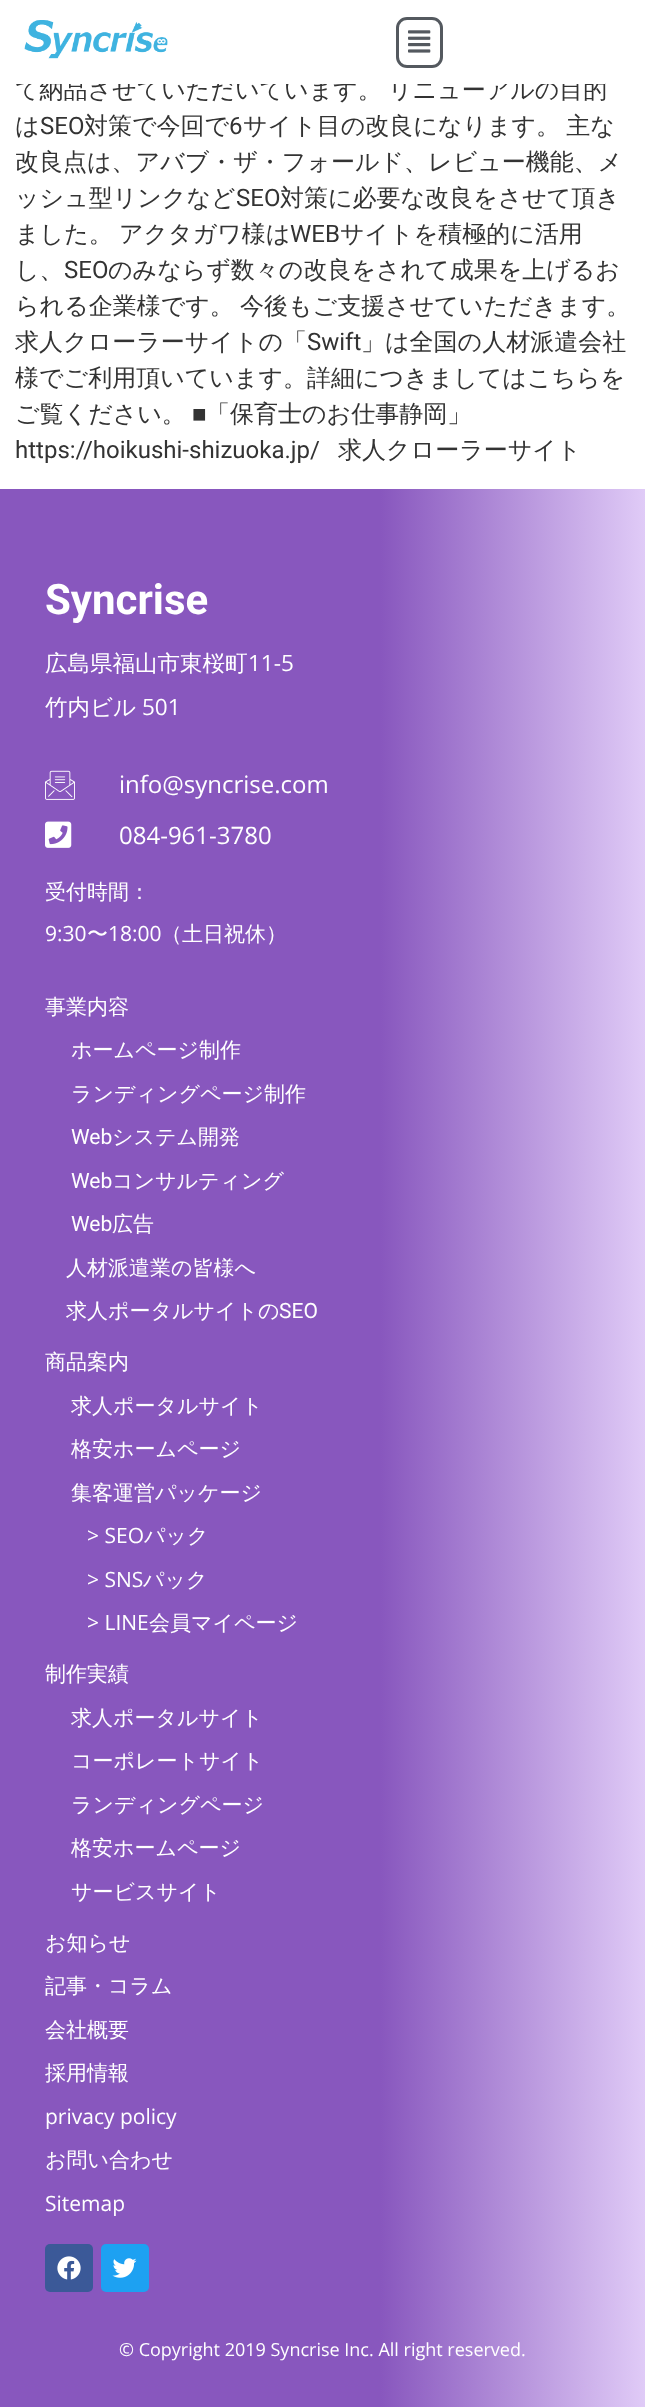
<?xml version="1.0" encoding="UTF-8"?>
<svg xmlns="http://www.w3.org/2000/svg" xmlns:xlink="http://www.w3.org/1999/xlink" width="645" height="2407">
  <defs>
    <linearGradient id="g1" gradientUnits="userSpaceOnUse" x1="0" y1="1482" x2="645" y2="1482"><stop offset="0.59" stop-color="#8857be" /><stop offset="1" stop-color="#e0cbf7" /></linearGradient>
  </defs>
  <rect width="100%" height="100%" fill="#ffffff" />
  <image x="24" y="20" width="144" height="39" xlink:href="image1.png" />
  <rect x="397.5" y="18.5" width="44" height="48" rx="9.5" fill="none" stroke="#54595f" stroke-width="3" />
  <image x="408" y="30" width="23" height="23" xlink:href="image2.png" />
  <rect y="489" width="645" height="1918" fill="url(#g1)" />
  <image x="45" y="770" width="30" height="30" xlink:href="image3.png" />
  <image x="45" y="821" width="27" height="27" xlink:href="image4.png" />
  <rect x="45" y="2244" width="48" height="48" rx="5" fill="#3b5998" />
  <image x="57" y="2256" width="24" height="24" xlink:href="image5.png" />
  <rect x="101" y="2244" width="48" height="48" rx="5" fill="#1da1f2" />
  <image x="112" y="2258" width="25" height="20" xlink:href="image6.png" />
  <text x="15" y="98" word-spacing="-1" style="font-family: WenQuanYi Zen Hei; font-size: 24px; font-weight: 500; fill: #333333">て納品させていただいています。 リニューアルの目的</text>
  <rect x="16" y="78" width="589" height="6" fill="#ffffff" />
  <text x="15" y="134" style="font-family: WenQuanYi Zen Hei; font-size: 24px; font-weight: 500; fill: #333333">は</text>
  <text x="40" y="134" style="font-family: Roboto; font-size: 24px; fill: #333333">SEO</text>
  <text x="84" y="134" style="font-family: WenQuanYi Zen Hei; font-size: 24px; font-weight: 500; fill: #333333">対策で今回で</text>
  <text x="229" y="134" style="font-family: Roboto; font-size: 24px; fill: #333333">6</text>
  <text x="243" y="134" word-spacing="-1" style="font-family: WenQuanYi Zen Hei; font-size: 24px; font-weight: 500; fill: #333333">サイト目の改良になります。 主な</text>
  <text x="15" y="170" style="font-family: WenQuanYi Zen Hei; font-size: 24px; font-weight: 500; fill: #333333">改良点は、アバブ・ザ・フォールド、レビュー機能、メ</text>
  <text x="15" y="206" style="font-family: WenQuanYi Zen Hei; font-size: 24px; font-weight: 500; fill: #333333">ッシュ型リンクなど</text>
  <text x="236" y="206" style="font-family: Roboto; font-size: 24px; fill: #333333">SEO</text>
  <text x="280" y="206" style="font-family: WenQuanYi Zen Hei; font-size: 24px; font-weight: 500; fill: #333333">対策に必要な改良をさせて頂き</text>
  <text x="15" y="242" word-spacing="-1" style="font-family: WenQuanYi Zen Hei; font-size: 24px; font-weight: 500; fill: #333333">ました。 アクタガワ様は</text>
  <text x="290" y="242" style="font-family: Roboto; font-size: 24px; fill: #333333">WEB</text>
  <text x="340" y="242" style="font-family: WenQuanYi Zen Hei; font-size: 24px; font-weight: 500; fill: #333333">サイトを積極的に活用</text>
  <text x="15" y="278" style="font-family: WenQuanYi Zen Hei; font-size: 24px; font-weight: 500; fill: #333333">し、</text>
  <text x="64" y="278" style="font-family: Roboto; font-size: 24px; fill: #333333">SEO</text>
  <text x="108" y="278" style="font-family: WenQuanYi Zen Hei; font-size: 24px; font-weight: 500; fill: #333333">のみならず数々の改良をされて成果を上げるお</text>
  <text x="15" y="314" word-spacing="-1" style="font-family: WenQuanYi Zen Hei; font-size: 24px; font-weight: 500; fill: #333333">られる企業様です。 今後もご支援させていただきます。</text>
  <text x="15" y="350" style="font-family: WenQuanYi Zen Hei; font-size: 24px; font-weight: 500; fill: #333333">求人クローラーサイトの「</text>
  <text x="307" y="350" style="font-family: Roboto; font-size: 24px; fill: #333333">Swift</text>
  <text x="361" y="350" style="font-family: WenQuanYi Zen Hei; font-size: 24px; font-weight: 500; fill: #333333">」は全国の人材派遣会社</text>
  <text x="15" y="386" style="font-family: WenQuanYi Zen Hei; font-size: 24px; font-weight: 500; fill: #333333">様でご利用頂いています。詳細につきましてはこちらを</text>
  <text x="15" y="422" style="font-family: WenQuanYi Zen Hei; font-size: 24px; font-weight: 500; fill: #333333">ご覧ください。</text>
  <text x="192" y="422" style="font-family: Liberation Sans; font-size: 24px; fill: #333333">■</text>
  <text x="206" y="422" style="font-family: WenQuanYi Zen Hei; font-size: 24px; font-weight: 500; fill: #333333">「保育士のお仕事静岡」</text>
  <text x="15" y="458" style="font-family: Roboto; font-size: 24px; fill: #333333">https://hoikushi-shizuoka.jp/</text>
  <text x="338" y="458" style="font-family: WenQuanYi Zen Hei; font-size: 24px; font-weight: 500; fill: #333333">求人クローラーサイト</text>
  <text x="45" y="614" style="font-family: Roboto; font-size: 42px; font-weight: bold; fill: #ffffff">Syncrise</text>
  <text x="45" y="671" style="font-family: WenQuanYi Zen Hei; font-size: 22.5px; font-weight: 500; fill: #ffffff">広島県福山市東桜町</text>
  <text x="248" y="671" style="font-family: Open Sans; font-size: 22.5px; fill: #ffffff">11-5</text>
  <text x="45" y="715" style="font-family: WenQuanYi Zen Hei; font-size: 22.5px; font-weight: 500; fill: #ffffff">竹内ビル</text>
  <text x="142" y="715" style="font-family: Open Sans; font-size: 22.5px; fill: #ffffff">501</text>
  <text x="119" y="793" style="font-family: Open Sans; font-size: 24px; fill: #ffffff">info@syncrise.com</text>
  <text x="119" y="844" style="font-family: Open Sans; font-size: 24px; fill: #ffffff">084-961-3780</text>
  <text x="45" y="899" style="font-family: WenQuanYi Zen Hei; font-size: 21px; font-weight: 500; fill: #ffffff">受付時間：</text>
  <text x="45" y="941" style="font-family: Open Sans; font-size: 21px; fill: #ffffff">9:30</text>
  <text x="87" y="941" style="font-family: WenQuanYi Zen Hei; font-size: 21px; font-weight: 500; fill: #ffffff">〜</text>
  <text x="108" y="941" style="font-family: Open Sans; font-size: 21px; fill: #ffffff">18:00</text>
  <text x="161" y="941" style="font-family: WenQuanYi Zen Hei; font-size: 21px; font-weight: 500; fill: #ffffff">（土日祝休）</text>
  <text x="45" y="1014" style="font-family: WenQuanYi Zen Hei; font-size: 21px; font-weight: 500; fill: #ffffff">事業内容</text>
  <text x="71" y="1057" style="font-family: WenQuanYi Zen Hei; font-size: 21px; font-weight: 500; fill: #ffffff">ホームページ制作</text>
  <text x="71" y="1101" style="font-family: WenQuanYi Zen Hei; font-size: 21px; font-weight: 500; fill: #ffffff">ランディングページ制作</text>
  <text x="71" y="1144" style="font-family: Roboto; font-size: 21px; fill: #ffffff">Web</text>
  <text x="112" y="1144" style="font-family: WenQuanYi Zen Hei; font-size: 21px; font-weight: 500; fill: #ffffff">システム開発</text>
  <text x="71" y="1188" style="font-family: Roboto; font-size: 21px; fill: #ffffff">Web</text>
  <text x="112" y="1188" style="font-family: WenQuanYi Zen Hei; font-size: 21px; font-weight: 500; fill: #ffffff">コンサルティング</text>
  <text x="71" y="1231" style="font-family: Roboto; font-size: 21px; fill: #ffffff">Web</text>
  <text x="112" y="1231" style="font-family: WenQuanYi Zen Hei; font-size: 21px; font-weight: 500; fill: #ffffff">広告</text>
  <text x="66" y="1275" style="font-family: WenQuanYi Zen Hei; font-size: 21px; font-weight: 500; fill: #ffffff">人材派遣業の皆様へ</text>
  <text x="66" y="1318" style="font-family: WenQuanYi Zen Hei; font-size: 21px; font-weight: 500; fill: #ffffff">求人ポータルサイトの</text>
  <text x="279" y="1318" style="font-family: Roboto; font-size: 21px; fill: #ffffff">SEO</text>
  <text x="45" y="1369" style="font-family: WenQuanYi Zen Hei; font-size: 21px; font-weight: 500; fill: #ffffff">商品案内</text>
  <text x="71" y="1413" style="font-family: WenQuanYi Zen Hei; font-size: 21px; font-weight: 500; fill: #ffffff">求人ポータルサイト</text>
  <text x="71" y="1456" style="font-family: WenQuanYi Zen Hei; font-size: 21px; font-weight: 500; fill: #ffffff">格安ホームページ</text>
  <text x="71" y="1500" style="font-family: WenQuanYi Zen Hei; font-size: 21px; font-weight: 500; fill: #ffffff">集客運営パッケージ</text>
  <text x="87" y="1543" style="font-family: Open Sans; font-size: 21px; fill: #ffffff">&gt; SEO</text>
  <text x="144" y="1543" style="font-family: WenQuanYi Zen Hei; font-size: 21px; font-weight: 500; fill: #ffffff">パック</text>
  <text x="87" y="1587" style="font-family: Open Sans; font-size: 21px; fill: #ffffff">&gt; SNS</text>
  <text x="143" y="1587" style="font-family: WenQuanYi Zen Hei; font-size: 21px; font-weight: 500; fill: #ffffff">パック</text>
  <text x="87" y="1630" style="font-family: Open Sans; font-size: 21px; fill: #ffffff">&gt; LINE</text>
  <text x="149" y="1630" style="font-family: WenQuanYi Zen Hei; font-size: 21px; font-weight: 500; fill: #ffffff">会員マイページ</text>
  <text x="45" y="1681" style="font-family: WenQuanYi Zen Hei; font-size: 21px; font-weight: 500; fill: #ffffff">制作実績</text>
  <text x="71" y="1725" style="font-family: WenQuanYi Zen Hei; font-size: 21px; font-weight: 500; fill: #ffffff">求人ポータルサイト</text>
  <text x="71" y="1768" style="font-family: WenQuanYi Zen Hei; font-size: 21px; font-weight: 500; fill: #ffffff">コーポレートサイト</text>
  <text x="71" y="1812" style="font-family: WenQuanYi Zen Hei; font-size: 21px; font-weight: 500; fill: #ffffff">ランディングページ</text>
  <text x="71" y="1855" style="font-family: WenQuanYi Zen Hei; font-size: 21px; font-weight: 500; fill: #ffffff">格安ホームページ</text>
  <text x="71" y="1899" style="font-family: WenQuanYi Zen Hei; font-size: 21px; font-weight: 500; fill: #ffffff">サービスサイト</text>
  <text x="45" y="1950" style="font-family: WenQuanYi Zen Hei; font-size: 21px; font-weight: 500; fill: #ffffff">お知らせ</text>
  <text x="45" y="1993" style="font-family: WenQuanYi Zen Hei; font-size: 21px; font-weight: 500; fill: #ffffff">記事・コラム</text>
  <text x="45" y="2037" style="font-family: WenQuanYi Zen Hei; font-size: 21px; font-weight: 500; fill: #ffffff">会社概要</text>
  <text x="45" y="2080" style="font-family: WenQuanYi Zen Hei; font-size: 21px; font-weight: 500; fill: #ffffff">採用情報</text>
  <text x="45" y="2124" style="font-family: Open Sans; font-size: 21px; fill: #ffffff">privacy policy</text>
  <text x="45" y="2167" style="font-family: WenQuanYi Zen Hei; font-size: 21px; font-weight: 500; fill: #ffffff">お問い合わせ</text>
  <text x="45" y="2211" style="font-family: Open Sans; font-size: 21px; fill: #ffffff">Sitemap</text>
  <text x="119" y="2356" style="font-family: Open Sans; font-size: 18px; fill: #ffffff">© Copyright 2019 Syncrise Inc. All right reserved.</text>
</svg>
